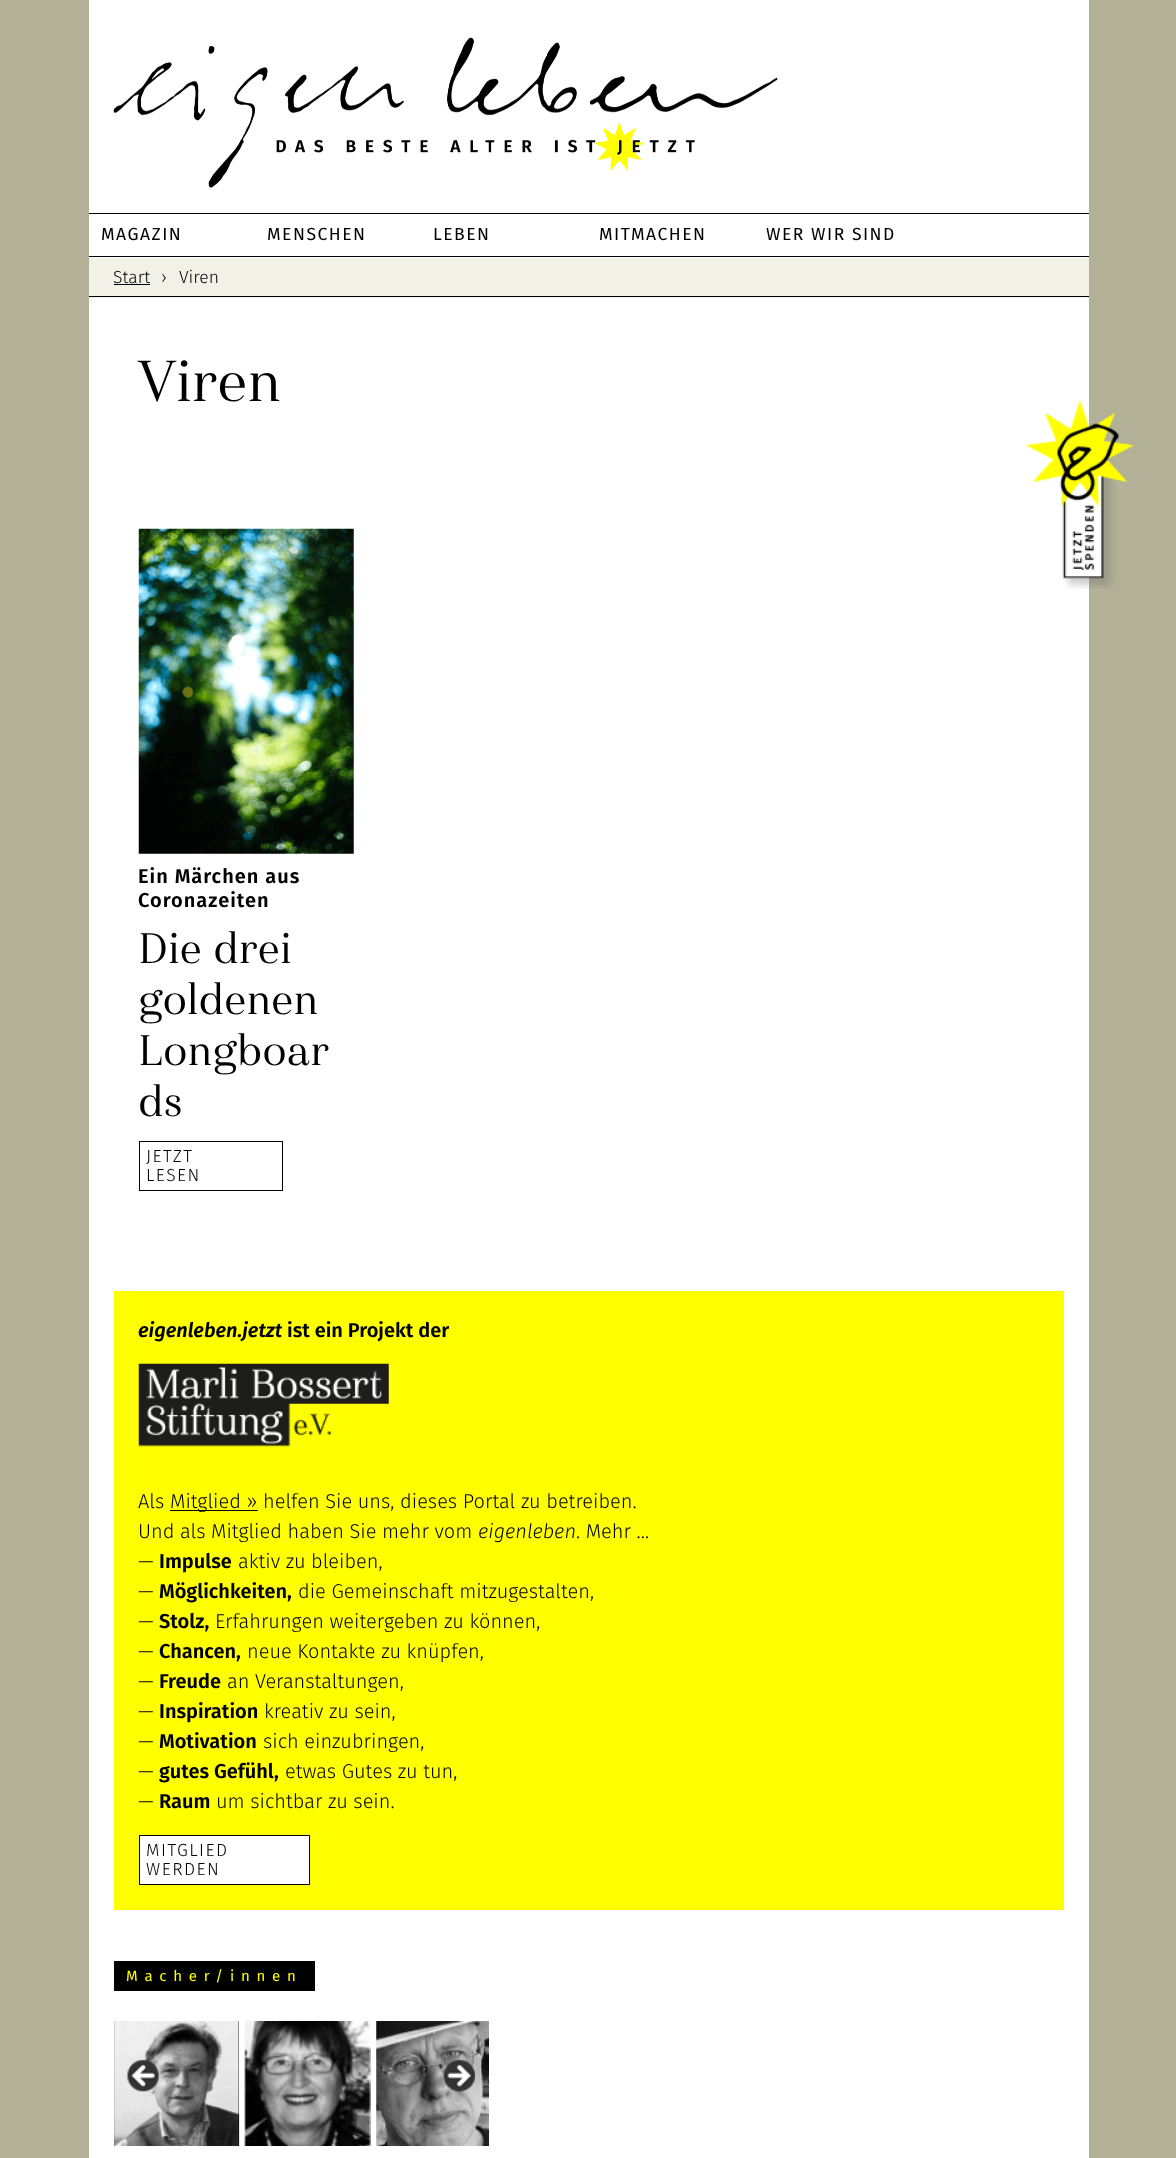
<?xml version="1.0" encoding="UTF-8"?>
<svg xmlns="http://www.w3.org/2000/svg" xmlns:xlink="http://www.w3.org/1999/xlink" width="1176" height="2158">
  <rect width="100%" height="100%" fill="#b2b097" />
  <rect x="89" width="1000" height="213" fill="#ffffff" />
  <image x="113" y="37" width="665" height="151" xlink:href="image1.png" />
  <rect x="89" y="214" width="1000" height="44" fill="#ffffff" />
  <rect x="89" y="213" width="1000" height="1" fill="#000000" />
  <rect x="89" y="256" width="1000" height="1" fill="#000000" />
  <rect x="89" y="298" width="1000" height="1860" fill="#ffffff" />
  <rect x="89" y="258" width="1000" height="40" fill="#f2f1e7" />
  <rect x="89" y="296" width="1000" height="1" fill="#000000" />
  <rect x="114" y="284" width="36" height="1" fill="#000000" />
  <image x="138" y="528" width="216" height="326" xlink:href="image2.png" />
  <rect x="139.5" y="1141.5" width="143" height="49" fill="none" stroke="#000000" />
  <rect x="114" y="1291" width="950" height="619" fill="#ffff00" />
  <image x="138" y="1363" width="251" height="84" xlink:href="image3.png" />
  <rect x="170" y="1510" width="88" height="1" fill="#000000" />
  <rect x="139.5" y="1835.5" width="170" height="49" fill="#ffffff" stroke="#000000" />
  <rect x="114" y="1961" width="201" height="30" fill="#000000" />
  <rect x="114" y="2021" width="125" height="125" fill="#000000" />
  <image x="114" y="2021" width="126" height="125" xlink:href="image4.png" />
  <image x="244" y="2021" width="127" height="125" xlink:href="image5.png" />
  <image x="376" y="2021" width="113" height="125" xlink:href="image6.png" />
  <image x="127" y="2059" width="32" height="33" xlink:href="image7.png" />
  <image x="443" y="2059" width="33" height="33" xlink:href="image8.png" />
  <image x="1026" y="400" width="108" height="189" xlink:href="image9.png" />
  <text x="101" y="240" style="font-family: Fira Sans; font-size: 17.5px; letter-spacing: 1.5px; fill: #000000">MAGAZIN</text>
  <text x="267" y="240" style="font-family: Fira Sans; font-size: 17.5px; letter-spacing: 1.5px; fill: #000000">MENSCHEN</text>
  <text x="433" y="240" style="font-family: Fira Sans; font-size: 17.5px; letter-spacing: 1.5px; fill: #000000">LEBEN</text>
  <text x="599" y="240" style="font-family: Fira Sans; font-size: 17.5px; letter-spacing: 1.5px; fill: #000000">MITMACHEN</text>
  <text x="766" y="240" style="font-family: Fira Sans; font-size: 17.5px; letter-spacing: 1.5px; fill: #000000">WER WIR SIND</text>
  <text x="113" y="283" style="font-family: Fira Sans; font-size: 17.5px; font-weight: 300; fill: #000000">Start</text>
  <text x="161" y="283" style="font-family: Fira Sans; font-size: 17.5px; font-weight: 300; fill: #000000">›</text>
  <text x="179" y="283" style="font-family: Fira Sans; font-size: 17.5px; font-weight: 300; fill: #000000">Viren</text>
  <text x="138" y="401" style="font-family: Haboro; font-size: 57.5px; font-weight: 500; fill: #000000">Viren</text>
  <text x="138" y="883" style="font-family: Fira Sans; font-size: 20px; font-weight: 600; letter-spacing: 1px; fill: #000000">Ein Märchen aus</text>
  <text x="138" y="907" style="font-family: Fira Sans; font-size: 20px; font-weight: 600; letter-spacing: 1px; fill: #000000">Coronazeiten</text>
  <text x="138" y="963" style="font-family: Haboro; font-size: 42.5px; font-weight: 500; fill: #000000">Die drei</text>
  <text x="138" y="1014" style="font-family: Haboro; font-size: 42.5px; font-weight: 500; fill: #000000">goldenen</text>
  <text x="138" y="1065" style="font-family: Haboro; font-size: 42.5px; font-weight: 500; fill: #000000">Longboar</text>
  <text x="138" y="1116" style="font-family: Haboro; font-size: 42.5px; font-weight: 500; fill: #000000">ds</text>
  <text x="146" y="1162" style="font-family: Fira Sans; font-size: 17.5px; font-weight: 300; letter-spacing: 1.5px; fill: #000000">JETZT</text>
  <text x="146" y="1181" style="font-family: Fira Sans; font-size: 17.5px; font-weight: 300; letter-spacing: 1.5px; fill: #000000">LESEN</text>
  <text x="138" y="1337" style="font-family: Fira Sans; font-size: 20px; font-weight: 600; font-style: italic; fill: #000000">eigenleben.jetzt</text>
  <text x="287" y="1337" style="font-family: Fira Sans; font-size: 20px; font-weight: 600; fill: #000000">ist ein Projekt der</text>
  <text x="138" y="1508" style="font-family: Fira Sans; font-size: 20px; font-weight: 300; fill: #000000">Als</text>
  <text x="170" y="1508" style="font-family: Fira Sans; font-size: 20px; font-weight: 300; fill: #000000">Mitglied ›› helfen Sie uns, dieses Portal zu betreiben.</text>
  <text x="138" y="1538" style="font-family: Fira Sans; font-size: 20px; font-weight: 300; fill: #000000">Und als Mitglied haben Sie mehr vom</text>
  <text x="478" y="1538" style="font-family: Fira Sans; font-size: 20px; font-weight: 300; font-style: italic; fill: #000000">eigenleben</text>
  <text x="576" y="1538" style="font-family: Fira Sans; font-size: 20px; font-weight: 300; fill: #000000">. Mehr …</text>
  <text x="138" y="1568" style="font-family: Fira Sans; font-size: 20px; font-weight: 300; fill: #000000">—</text>
  <text x="159" y="1568" style="font-family: Fira Sans; font-size: 20px; font-weight: 600; fill: #000000">Impulse</text>
  <text x="238" y="1568" style="font-family: Fira Sans; font-size: 20px; font-weight: 300; fill: #000000">aktiv zu bleiben,</text>
  <text x="138" y="1598" style="font-family: Fira Sans; font-size: 20px; font-weight: 300; fill: #000000">—</text>
  <text x="159" y="1598" style="font-family: Fira Sans; font-size: 20px; font-weight: 600; fill: #000000">Möglichkeiten,</text>
  <text x="298" y="1598" style="font-family: Fira Sans; font-size: 20px; font-weight: 300; fill: #000000">die Gemeinschaft mitzugestalten,</text>
  <text x="138" y="1628" style="font-family: Fira Sans; font-size: 20px; font-weight: 300; fill: #000000">—</text>
  <text x="159" y="1628" style="font-family: Fira Sans; font-size: 20px; font-weight: 600; fill: #000000">Stolz,</text>
  <text x="215" y="1628" style="font-family: Fira Sans; font-size: 20px; font-weight: 300; fill: #000000">Erfahrungen weitergeben zu können,</text>
  <text x="138" y="1658" style="font-family: Fira Sans; font-size: 20px; font-weight: 300; fill: #000000">—</text>
  <text x="159" y="1658" style="font-family: Fira Sans; font-size: 20px; font-weight: 600; fill: #000000">Chancen,</text>
  <text x="247" y="1658" style="font-family: Fira Sans; font-size: 20px; font-weight: 300; fill: #000000">neue Kontakte zu knüpfen,</text>
  <text x="138" y="1688" style="font-family: Fira Sans; font-size: 20px; font-weight: 300; fill: #000000">—</text>
  <text x="159" y="1688" style="font-family: Fira Sans; font-size: 20px; font-weight: 600; fill: #000000">Freude</text>
  <text x="227" y="1688" style="font-family: Fira Sans; font-size: 20px; font-weight: 300; fill: #000000">an Veranstaltungen,</text>
  <text x="138" y="1718" style="font-family: Fira Sans; font-size: 20px; font-weight: 300; fill: #000000">—</text>
  <text x="159" y="1718" style="font-family: Fira Sans; font-size: 20px; font-weight: 600; fill: #000000">Inspiration</text>
  <text x="264" y="1718" style="font-family: Fira Sans; font-size: 20px; font-weight: 300; fill: #000000">kreativ zu sein,</text>
  <text x="138" y="1748" style="font-family: Fira Sans; font-size: 20px; font-weight: 300; fill: #000000">—</text>
  <text x="159" y="1748" style="font-family: Fira Sans; font-size: 20px; font-weight: 600; fill: #000000">Motivation</text>
  <text x="263" y="1748" style="font-family: Fira Sans; font-size: 20px; font-weight: 300; fill: #000000">sich einzubringen,</text>
  <text x="138" y="1778" style="font-family: Fira Sans; font-size: 20px; font-weight: 300; fill: #000000">—</text>
  <text x="159" y="1778" style="font-family: Fira Sans; font-size: 20px; font-weight: 600; fill: #000000">gutes Gefühl,</text>
  <text x="285" y="1778" style="font-family: Fira Sans; font-size: 20px; font-weight: 300; fill: #000000">etwas Gutes zu tun,</text>
  <text x="138" y="1808" style="font-family: Fira Sans; font-size: 20px; font-weight: 300; fill: #000000">—</text>
  <text x="159" y="1808" style="font-family: Fira Sans; font-size: 20px; font-weight: 600; fill: #000000">Raum</text>
  <text x="216" y="1808" style="font-family: Fira Sans; font-size: 20px; font-weight: 300; fill: #000000">um sichtbar zu sein.</text>
  <text x="146" y="1856" style="font-family: Fira Sans; font-size: 17.5px; font-weight: 300; letter-spacing: 1.5px; fill: #000000">MITGLIED</text>
  <text x="146" y="1875" style="font-family: Fira Sans; font-size: 17.5px; font-weight: 300; letter-spacing: 1.5px; fill: #000000">WERDEN</text>
  <text x="126" y="1981" style="font-family: Fira Sans; font-size: 15px; letter-spacing: 6.75px; fill: #ffff00">Macher/innen</text>
</svg>
